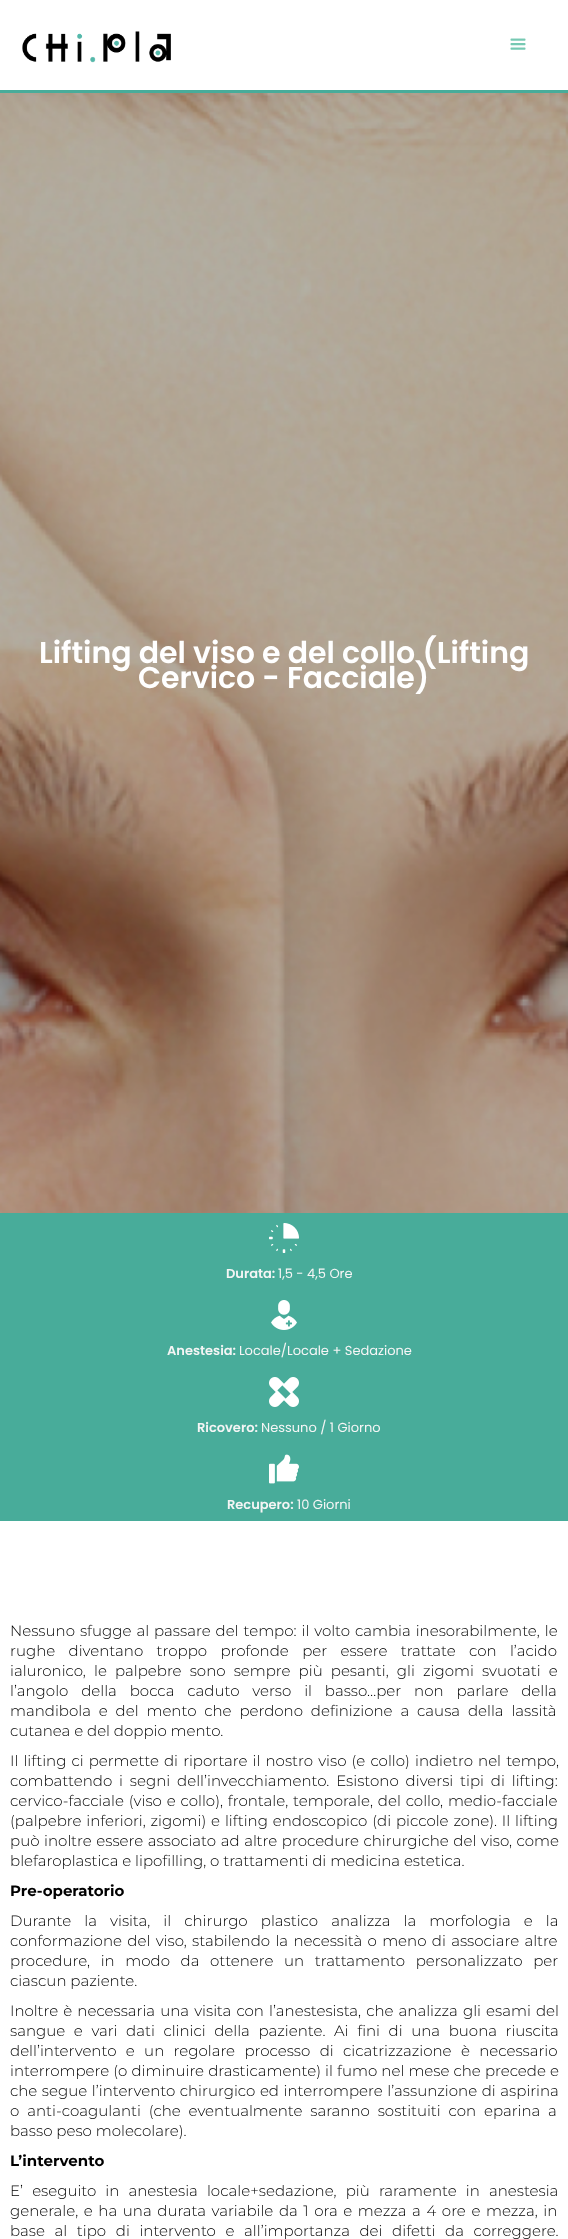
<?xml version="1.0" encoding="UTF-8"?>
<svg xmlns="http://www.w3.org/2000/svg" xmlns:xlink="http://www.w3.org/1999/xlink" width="568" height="2239">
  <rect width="100%" height="100%" fill="#ffffff" />
  <rect y="90" width="568" height="3" fill="#48ac9a" />
  <image x="22" y="31" width="149" height="32" xlink:href="image1.png" />
  <image x="510" y="38" width="16" height="12" xlink:href="image2.png" />
  <image x="0" y="93" width="568" height="1120" xlink:href="image3.png" />
  <rect y="1213" width="568" height="308" fill="#48ac9a" />
  <image x="269" y="1223" width="30" height="30" xlink:href="image4.png" />
  <image x="271" y="1300" width="26" height="30" xlink:href="image5.png" />
  <image x="269" y="1377" width="30" height="30" xlink:href="image6.png" />
  <image x="269" y="1454" width="30" height="30" xlink:href="image7.png" />
  <text x="39" y="663" style="font-family: Poppins; font-size: 30px; font-weight: 600; fill: #ffffff">Lifting del viso e del collo (Lifting</text>
  <text x="138" y="688" style="font-family: Poppins; font-size: 30px; font-weight: 600; fill: #ffffff">Cervico - Facciale)</text>
  <text x="226" y="1278" style="font-family: Poppins; font-size: 13px; font-weight: 600; fill: #f5f5f5">Durata:</text>
  <text x="278" y="1278" style="font-family: Poppins; font-size: 13px; fill: #f5f5f5">1,5 - 4,5 Ore</text>
  <text x="167" y="1355" style="font-family: Poppins; font-size: 13px; font-weight: 600; fill: #f5f5f5">Anestesia:</text>
  <text x="239" y="1355" style="font-family: Poppins; font-size: 13px; fill: #f5f5f5">Locale/Locale + Sedazione</text>
  <text x="197" y="1432" style="font-family: Poppins; font-size: 13px; font-weight: 600; fill: #f5f5f5">Ricovero:</text>
  <text x="261" y="1432" style="font-family: Poppins; font-size: 13px; fill: #f5f5f5">Nessuno / 1 Giorno</text>
  <text x="227" y="1509" style="font-family: Poppins; font-size: 13px; font-weight: 600; fill: #f5f5f5">Recupero:</text>
  <text x="297" y="1509" style="font-family: Poppins; font-size: 13px; fill: #f5f5f5">10 Giorni</text>
  <text x="10" y="1636" word-spacing="1.1" style="font-family: Montserrat; font-size: 15px; font-weight: 300; fill: #000000">Nessuno sfugge al passare del tempo: il volto cambia inesorabilmente, le</text>
  <text x="10" y="1656" word-spacing="9.5" style="font-family: Montserrat; font-size: 15px; font-weight: 300; fill: #000000">rughe diventano troppo profonde per essere trattate con l’acido</text>
  <text x="10" y="1676" word-spacing="4.25" style="font-family: Montserrat; font-size: 15px; font-weight: 300; fill: #000000">ialuronico, le palpebre sono sempre più pesanti, gli zigomi svuotati e</text>
  <text x="10" y="1696" word-spacing="9" style="font-family: Montserrat; font-size: 15px; font-weight: 300; fill: #000000">l’angolo della bocca caduto verso il basso…per non parlare della</text>
  <text x="10" y="1716" word-spacing="4" style="font-family: Montserrat; font-size: 15px; font-weight: 300; fill: #000000">mandibola e del mento che perdono definizione a causa della lassità</text>
  <text x="10" y="1736" style="font-family: Montserrat; font-size: 15px; font-weight: 300; fill: #000000">cutanea e del doppio mento.</text>
  <text x="10" y="1766" word-spacing="1.25" style="font-family: Montserrat; font-size: 15px; font-weight: 300; fill: #000000">Il lifting ci permette di riportare il nostro viso (e collo) indietro nel tempo,</text>
  <text x="10" y="1786" word-spacing="3" style="font-family: Montserrat; font-size: 15px; font-weight: 300; fill: #000000">combattendo i segni dell’invecchiamento. Esistono diversi tipi di lifting:</text>
  <text x="10" y="1806" word-spacing="1" style="font-family: Montserrat; font-size: 15px; font-weight: 300; fill: #000000">cervico-facciale (viso e collo), frontale, temporale, del collo, medio-facciale</text>
  <text x="10" y="1826" word-spacing="1" style="font-family: Montserrat; font-size: 15px; font-weight: 300; fill: #000000">(palpebre inferiori, zigomi) e lifting endoscopico (di piccole zone). Il lifting</text>
  <text x="10" y="1846" word-spacing="0.75" style="font-family: Montserrat; font-size: 15px; font-weight: 300; fill: #000000">può inoltre essere associato ad altre procedure chirurgiche del viso, come</text>
  <text x="10" y="1866" style="font-family: Montserrat; font-size: 15px; font-weight: 300; fill: #000000">blefaroplastica e lipofilling, o trattamenti di medicina estetica.</text>
  <text x="10" y="1896" style="font-family: Montserrat; font-size: 15px; font-weight: bold; fill: #000000">Pre-operatorio</text>
  <text x="10" y="1926" word-spacing="9.25" style="font-family: Montserrat; font-size: 15px; font-weight: 300; fill: #000000">Durante la visita, il chirurgo plastico analizza la morfologia e la</text>
  <text x="10" y="1946" word-spacing="1.5" style="font-family: Montserrat; font-size: 15px; font-weight: 300; fill: #000000">conformazione del viso, stabilendo la necessità o meno di associare altre</text>
  <text x="10" y="1966" word-spacing="6.75" style="font-family: Montserrat; font-size: 15px; font-weight: 300; fill: #000000">procedure, in modo da ottenere un trattamento personalizzato per</text>
  <text x="10" y="1986" style="font-family: Montserrat; font-size: 15px; font-weight: 300; fill: #000000">ciascun paziente.</text>
  <text x="10" y="2016" word-spacing="1.25" style="font-family: Montserrat; font-size: 15px; font-weight: 300; fill: #000000">Inoltre è necessaria una visita con l’anestesista, che analizza gli esami del</text>
  <text x="10" y="2036" word-spacing="4.75" style="font-family: Montserrat; font-size: 15px; font-weight: 300; fill: #000000">sangue e vari dati clinici della paziente. Ai fini di una buona riuscita</text>
  <text x="10" y="2056" word-spacing="5.5" style="font-family: Montserrat; font-size: 15px; font-weight: 300; fill: #000000">dell’intervento e un regolare processo di cicatrizzazione è necessario</text>
  <text x="10" y="2076" word-spacing="0.25" style="font-family: Montserrat; font-size: 15px; font-weight: 300; fill: #000000">interrompere (o diminuire drasticamente) il fumo nel mese che precede e</text>
  <text x="10" y="2096" word-spacing="0.75" style="font-family: Montserrat; font-size: 15px; font-weight: 300; fill: #000000">che segue l’intervento chirurgico ed interrompere l’assunzione di aspirina</text>
  <text x="10" y="2116" word-spacing="4" style="font-family: Montserrat; font-size: 15px; font-weight: 300; fill: #000000">o anti-coagulanti (che eventualmente saranno sostituiti con eparina a</text>
  <text x="10" y="2136" style="font-family: Montserrat; font-size: 15px; font-weight: 300; fill: #000000">basso peso molecolare).</text>
  <text x="10" y="2166" style="font-family: Montserrat; font-size: 15px; font-weight: bold; fill: #000000">L’intervento</text>
  <text x="10" y="2196" word-spacing="5.25" style="font-family: Montserrat; font-size: 15px; font-weight: 300; fill: #000000">E’ eseguito in anestesia locale+sedazione, più raramente in anestesia</text>
  <text x="10" y="2216" word-spacing="1.75" style="font-family: Montserrat; font-size: 15px; font-weight: 300; fill: #000000">generale, e ha una durata variabile da 1 ora e mezza a 4 ore e mezza, in</text>
  <text x="10" y="2236" word-spacing="5.75" style="font-family: Montserrat; font-size: 15px; font-weight: 300; fill: #000000">base al tipo di intervento e all’importanza dei difetti da correggere.</text>
</svg>
